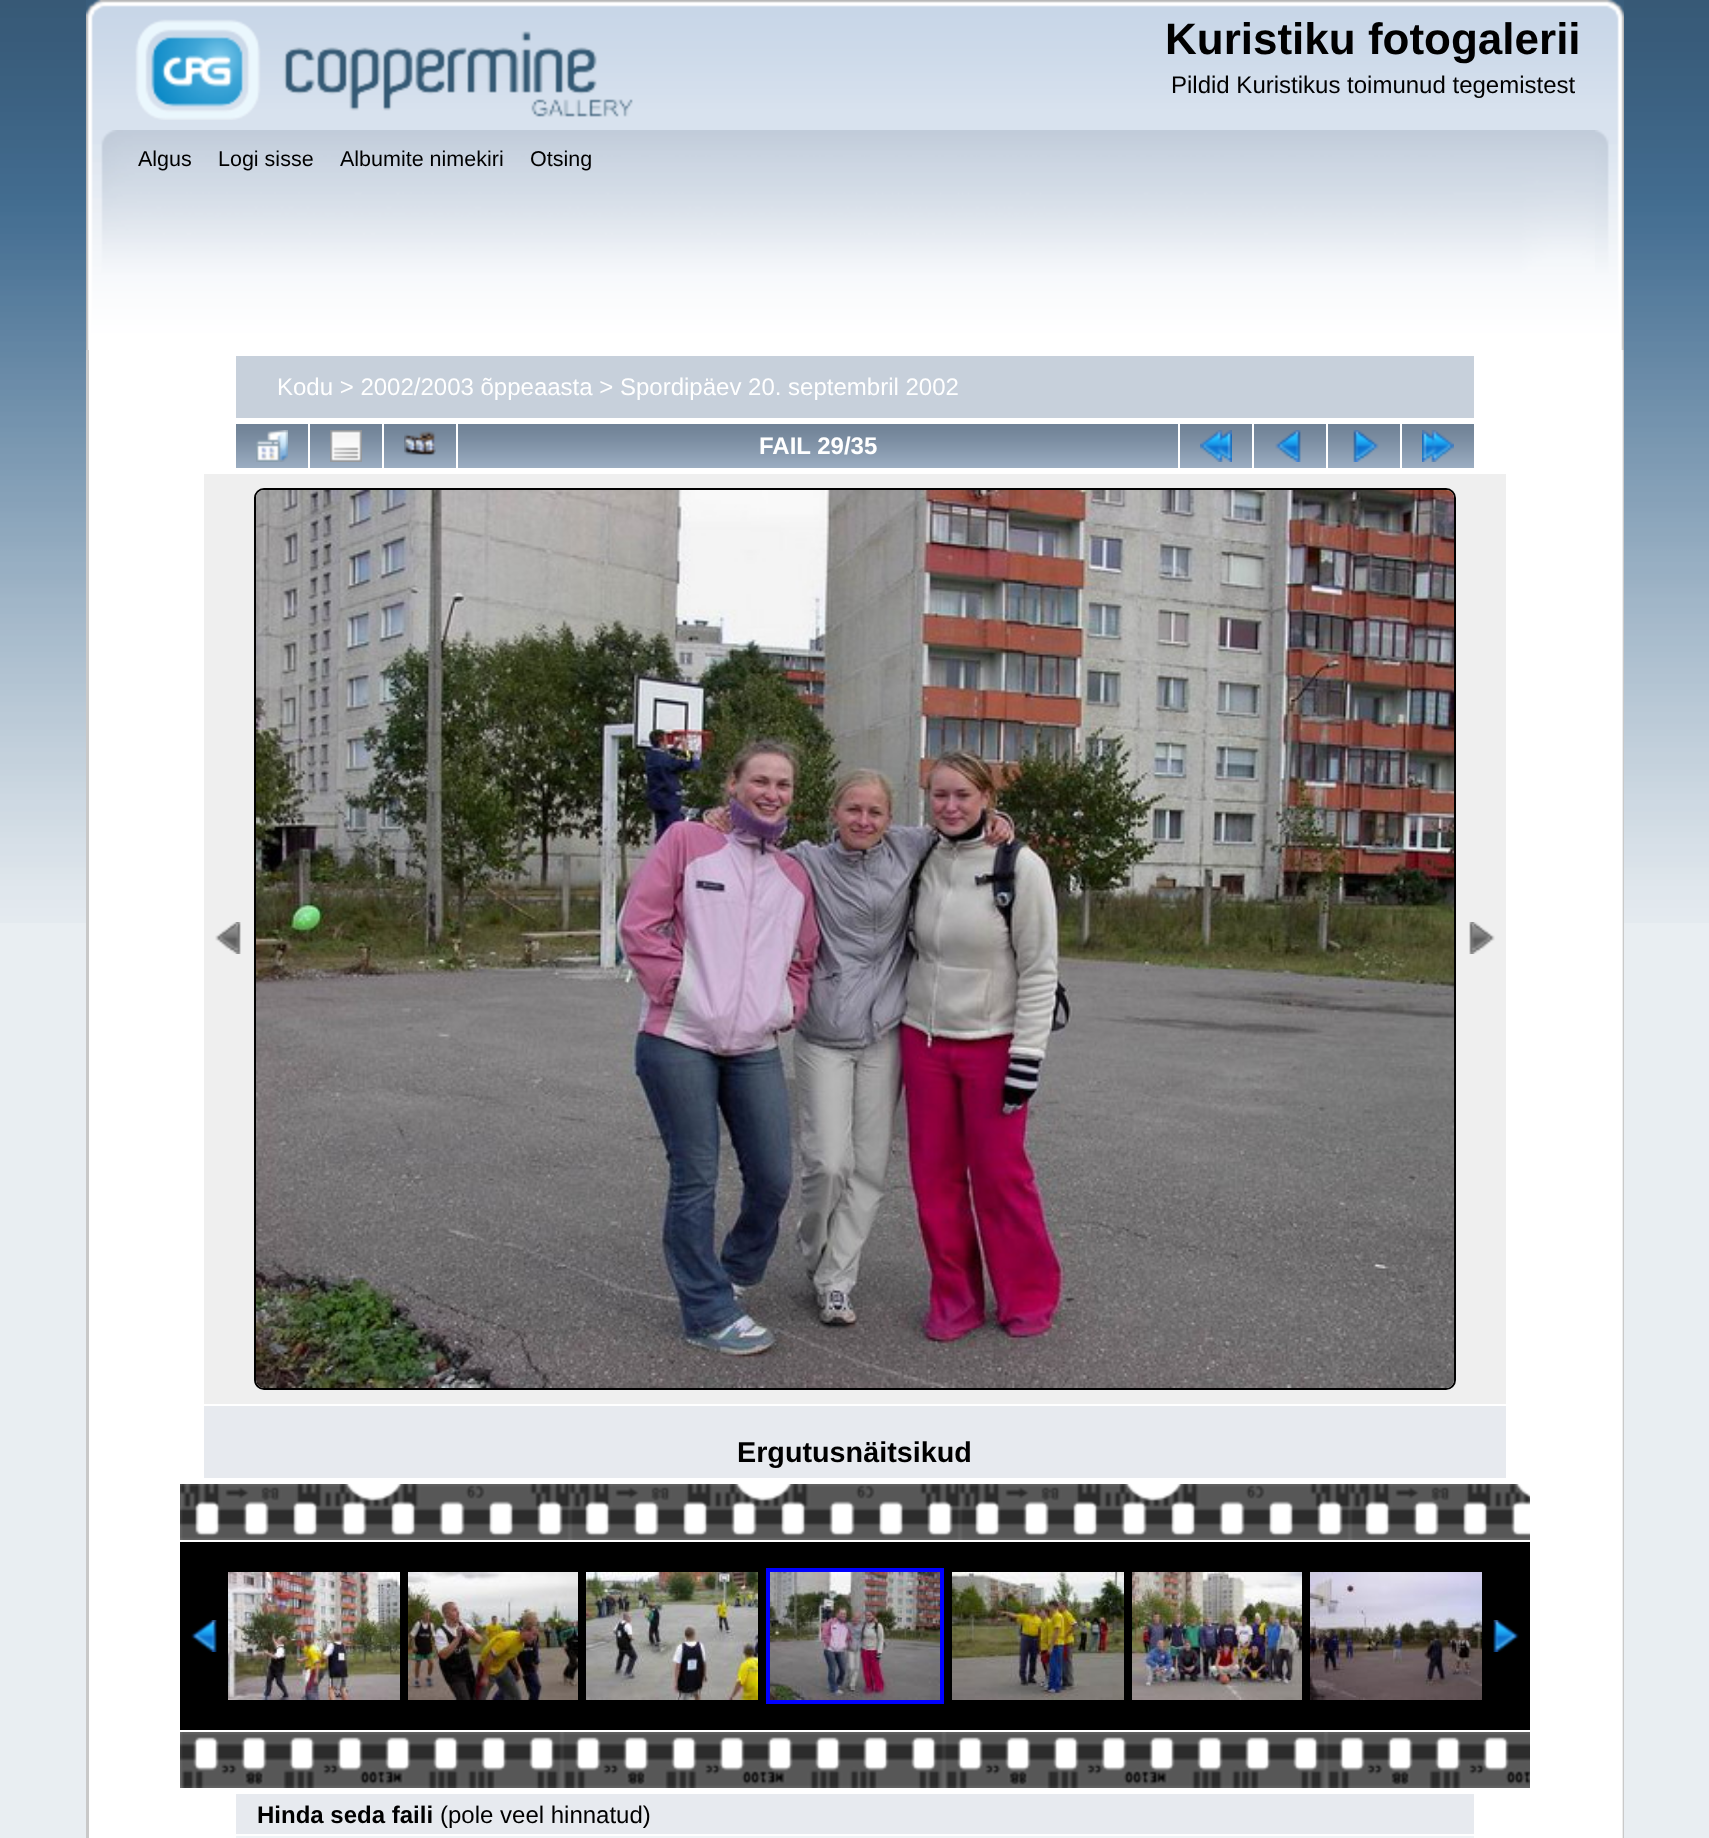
<?xml version="1.0" encoding="UTF-8"?>
<svg xmlns="http://www.w3.org/2000/svg" xmlns:xlink="http://www.w3.org/1999/xlink" width="1709" height="1838">
  <rect width="100%" height="100%" fill="#e9eef2" />
  <image x="0" y="0" width="1709" height="923" xlink:href="image1.png" />
  <image x="86" y="0" width="1521" height="130" xlink:href="image2.png" />
  <image x="1607" y="0" width="17" height="130" xlink:href="image3.png" />
  <image x="135" y="19" width="498" height="101" xlink:href="image4.png" />
  <image x="86" y="130" width="1509" height="220" xlink:href="image5.png" />
  <image x="1595" y="130" width="29" height="220" xlink:href="image6.png" />
  <rect x="89" y="350" width="1533" height="1488" fill="#ffffff" />
  <rect x="86" y="350" width="3" height="1488" fill="#c9c9c9" />
  <image x="1622" y="350" width="2" height="1488" xlink:href="image7.png" />
  <rect x="236" y="356" width="1238" height="62" fill="#c7d0db" />
  <image x="236" y="424" width="72" height="44" xlink:href="image8.png" />
  <image x="256" y="430" width="32" height="32" xlink:href="image9.png" />
  <image x="310" y="424" width="72" height="44" xlink:href="image8.png" />
  <image x="330" y="430" width="32" height="32" xlink:href="image10.png" />
  <image x="384" y="424" width="72" height="44" xlink:href="image8.png" />
  <image x="404" y="431" width="32" height="25" xlink:href="image11.png" />
  <image x="458" y="424" width="720" height="44" xlink:href="image12.png" />
  <image x="1180" y="424" width="72" height="44" xlink:href="image8.png" />
  <image x="1200" y="430" width="32" height="32" xlink:href="image13.png" />
  <image x="1254" y="424" width="72" height="44" xlink:href="image8.png" />
  <image x="1275" y="430" width="26" height="32" xlink:href="image14.png" />
  <image x="1328" y="424" width="72" height="44" xlink:href="image8.png" />
  <image x="1353" y="430" width="26" height="32" xlink:href="image15.png" />
  <image x="1402" y="424" width="72" height="44" xlink:href="image8.png" />
  <image x="1422" y="430" width="32" height="32" xlink:href="image16.png" />
  <rect x="204" y="474" width="1302" height="930" fill="#efefef" />
  <image x="215" y="922" width="26" height="32" xlink:href="image17.png" />
  <rect x="255" y="489" width="1200" height="900" rx="9" fill="none" stroke="#000000" stroke-width="2" />
  <image x="256" y="490" width="1198" height="898" xlink:href="image18.png" />
  <image x="1469" y="922" width="26" height="32" xlink:href="image19.png" />
  <rect x="204" y="1406" width="1302" height="72" fill="#e7eaef" />
  <image x="180" y="1484" width="1350" height="56" xlink:href="image20.png" />
  <rect x="180" y="1542" width="1350" height="188" fill="#000000" />
  <image x="191" y="1620" width="26" height="32" xlink:href="image21.png" />
  <image x="228" y="1572" width="172" height="128" xlink:href="image22.png" />
  <image x="408" y="1572" width="170" height="128" xlink:href="image23.png" />
  <image x="586" y="1572" width="172" height="128" xlink:href="image24.png" />
  <rect x="768" y="1570" width="174" height="132" fill="none" stroke="#0000ff" stroke-width="4" />
  <image x="770" y="1572" width="170" height="128" xlink:href="image25.png" />
  <image x="952" y="1572" width="172" height="128" xlink:href="image26.png" />
  <image x="1132" y="1572" width="170" height="128" xlink:href="image27.png" />
  <image x="1310" y="1572" width="172" height="128" xlink:href="image28.png" />
  <image x="1493" y="1620" width="26" height="32" xlink:href="image29.png" />
  <image x="180" y="1732" width="1350" height="56" xlink:href="image30.png" />
  <rect x="236" y="1794" width="1238" height="40" fill="#e7eaef" />
  <rect x="236" y="1836" width="1238" height="2" fill="#f0f4f7" />
  <text x="1165" y="54" style="font-family: Liberation Sans; font-size: 44px; font-weight: bold; fill: #000000">Kuristiku fotogalerii</text>
  <text x="1171" y="93" style="font-family: Liberation Sans; font-size: 24px; fill: #000000">Pildid Kuristikus toimunud tegemistest</text>
  <text x="138" y="166" style="font-family: Liberation Sans; font-size: 21.5px; fill: #000000">Algus</text>
  <text x="218" y="166" style="font-family: Liberation Sans; font-size: 21.5px; fill: #000000">Logi sisse</text>
  <text x="340" y="166" style="font-family: Liberation Sans; font-size: 21.5px; fill: #000000">Albumite nimekiri</text>
  <text x="530" y="166" style="font-family: Liberation Sans; font-size: 21.5px; fill: #000000">Otsing</text>
  <text x="277" y="395" style="font-family: Liberation Sans; font-size: 24px; fill: #ffffff">Kodu &gt; 2002/2003 õppeaasta &gt; Spordipäev 20. septembril 2002</text>
  <text x="759" y="454" style="font-family: Liberation Sans; font-size: 24px; font-weight: bold; fill: #ffffff">FAIL 29/35</text>
  <text x="737" y="1462" style="font-family: Liberation Sans; font-size: 28.75px; font-weight: bold; fill: #000000">Ergutusnäitsikud</text>
  <text x="257" y="1823" style="font-family: Liberation Sans; font-size: 24px; font-weight: bold; fill: #000000">Hinda seda faili</text>
  <text x="440" y="1823" style="font-family: Liberation Sans; font-size: 24px; fill: #000000">(pole veel hinnatud)</text>
</svg>
